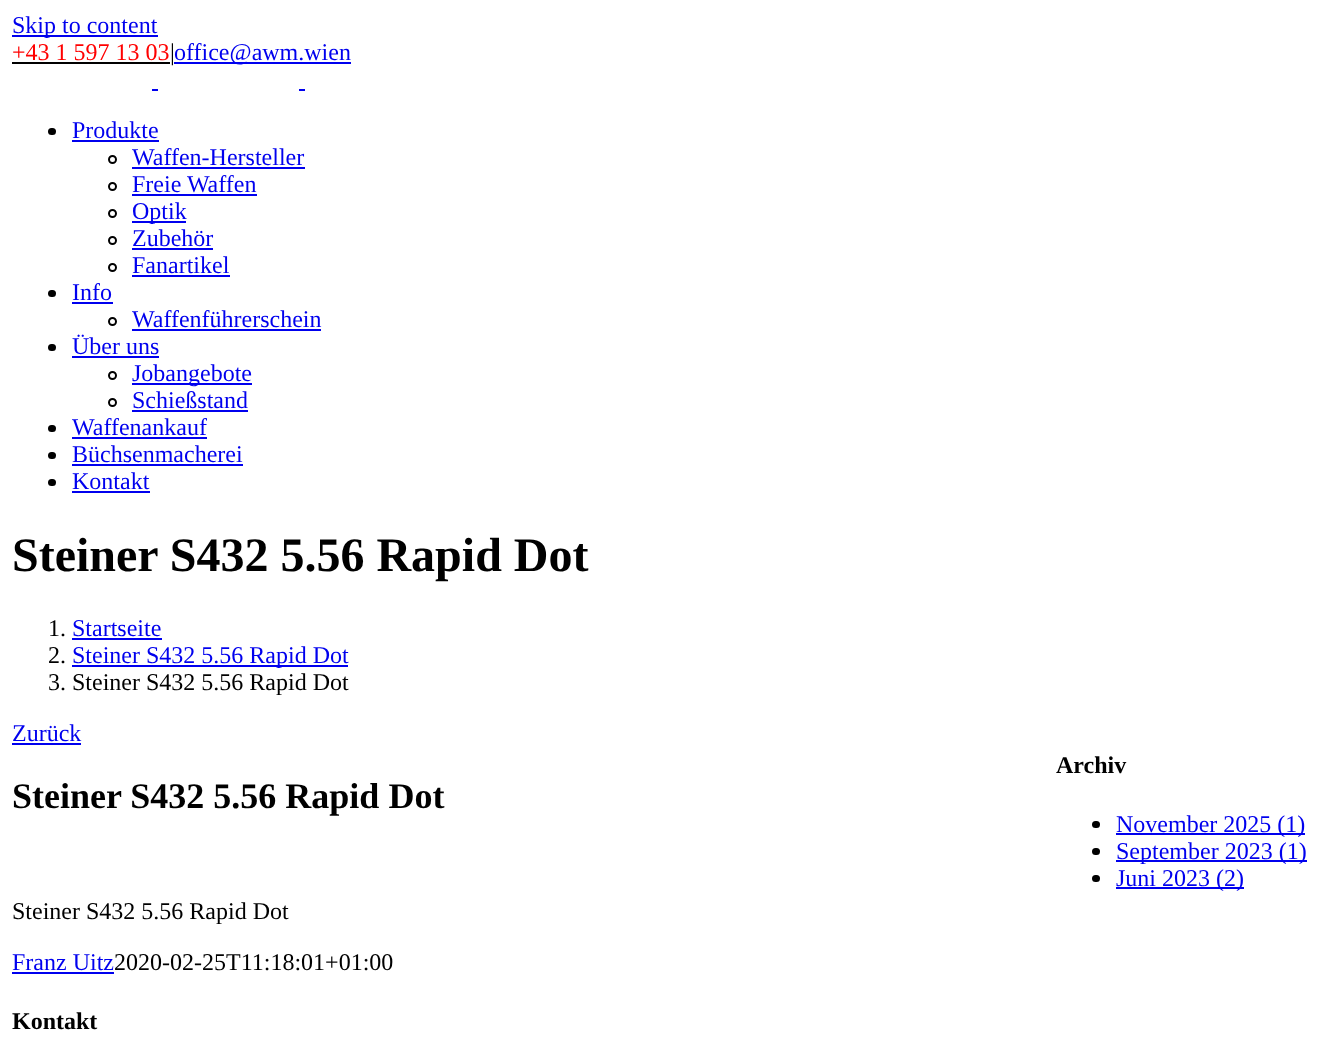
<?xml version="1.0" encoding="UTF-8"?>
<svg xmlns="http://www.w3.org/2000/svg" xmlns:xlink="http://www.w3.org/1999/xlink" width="1318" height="1037">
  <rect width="100%" height="100%" fill="#ffffff" />
  <rect x="12" y="35" width="146" height="2" fill="#0000ee" />
  <rect x="12" y="62" width="158" height="2" fill="#000000" />
  <rect x="174" y="62" width="177" height="2" fill="#0000ee" />
  <rect x="152" y="89" width="6" height="2" fill="#0000ee" />
  <rect x="299" y="89" width="6" height="2" fill="#0000ee" />
  <rect x="48" y="128" width="8" height="7" rx="3.5" fill="#000000" />
  <rect x="72" y="140" width="87" height="2" fill="#0000ee" />
  <circle cx="112.5" cy="159.5" r="3.5" fill="none" stroke="#000000" stroke-width="2" />
  <rect x="132" y="167" width="173" height="2" fill="#0000ee" />
  <circle cx="112.5" cy="186.5" r="3.5" fill="none" stroke="#000000" stroke-width="2" />
  <rect x="132" y="194" width="125" height="2" fill="#0000ee" />
  <circle cx="112.5" cy="213.5" r="3.5" fill="none" stroke="#000000" stroke-width="2" />
  <rect x="132" y="221" width="54" height="2" fill="#0000ee" />
  <circle cx="112.5" cy="240.5" r="3.5" fill="none" stroke="#000000" stroke-width="2" />
  <rect x="132" y="248" width="81" height="2" fill="#0000ee" />
  <circle cx="112.5" cy="267.5" r="3.5" fill="none" stroke="#000000" stroke-width="2" />
  <rect x="132" y="275" width="98" height="2" fill="#0000ee" />
  <rect x="48" y="290" width="8" height="7" rx="3.5" fill="#000000" />
  <rect x="72" y="302" width="41" height="2" fill="#0000ee" />
  <circle cx="112.5" cy="321.5" r="3.5" fill="none" stroke="#000000" stroke-width="2" />
  <rect x="132" y="329" width="189" height="2" fill="#0000ee" />
  <rect x="48" y="344" width="8" height="7" rx="3.5" fill="#000000" />
  <rect x="72" y="356" width="87" height="2" fill="#0000ee" />
  <circle cx="112.5" cy="375.5" r="3.5" fill="none" stroke="#000000" stroke-width="2" />
  <rect x="132" y="383" width="120" height="2" fill="#0000ee" />
  <circle cx="112.5" cy="402.5" r="3.5" fill="none" stroke="#000000" stroke-width="2" />
  <rect x="132" y="410" width="116" height="2" fill="#0000ee" />
  <rect x="48" y="425" width="8" height="7" rx="3.5" fill="#000000" />
  <rect x="72" y="437" width="135" height="2" fill="#0000ee" />
  <rect x="48" y="452" width="8" height="7" rx="3.5" fill="#000000" />
  <rect x="72" y="464" width="171" height="2" fill="#0000ee" />
  <rect x="48" y="479" width="8" height="7" rx="3.5" fill="#000000" />
  <rect x="72" y="491" width="78" height="2" fill="#0000ee" />
  <rect x="72" y="638" width="90" height="2" fill="#0000ee" />
  <rect x="72" y="665" width="276" height="2" fill="#0000ee" />
  <rect x="12" y="743" width="69" height="2" fill="#0000ee" />
  <rect x="12" y="972" width="102" height="2" fill="#0000ee" />
  <rect x="1092" y="821" width="8" height="7" rx="3.5" fill="#000000" />
  <rect x="1116" y="833" width="189" height="2" fill="#0000ee" />
  <rect x="1092" y="848" width="8" height="7" rx="3.5" fill="#000000" />
  <rect x="1116" y="860" width="191" height="2" fill="#0000ee" />
  <rect x="1092" y="875" width="8" height="7" rx="3.5" fill="#000000" />
  <rect x="1116" y="887" width="128" height="2" fill="#0000ee" />
  <text x="12" y="33" style="font-family: Liberation Serif; font-size: 24px; fill: #0000ee">Skip to content</text>
  <text x="12" y="60" style="font-family: Liberation Serif; font-size: 24px; fill: #ff0000">+43 1 597 13 03</text>
  <text x="170" y="60" style="font-family: Liberation Serif; font-size: 24px; fill: #000000">|</text>
  <text x="174" y="60" style="font-family: Liberation Serif; font-size: 24px; fill: #0000ee">office@awm.wien</text>
  <text x="72" y="138" style="font-family: Liberation Serif; font-size: 24px; fill: #0000ee">Produkte</text>
  <text x="132" y="165" style="font-family: Liberation Serif; font-size: 24px; fill: #0000ee">Waffen-Hersteller</text>
  <text x="132" y="192" style="font-family: Liberation Serif; font-size: 24px; fill: #0000ee">Freie Waffen</text>
  <text x="132" y="219" style="font-family: Liberation Serif; font-size: 24px; fill: #0000ee">Optik</text>
  <text x="132" y="246" style="font-family: Liberation Serif; font-size: 24px; fill: #0000ee">Zubehör</text>
  <text x="132" y="273" style="font-family: Liberation Serif; font-size: 24px; fill: #0000ee">Fanartikel</text>
  <text x="72" y="300" style="font-family: Liberation Serif; font-size: 24px; fill: #0000ee">Info</text>
  <text x="132" y="327" style="font-family: Liberation Serif; font-size: 24px; fill: #0000ee">Waffenführerschein</text>
  <text x="72" y="354" style="font-family: Liberation Serif; font-size: 24px; fill: #0000ee">Über uns</text>
  <text x="132" y="381" style="font-family: Liberation Serif; font-size: 24px; fill: #0000ee">Jobangebote</text>
  <text x="132" y="408" style="font-family: Liberation Serif; font-size: 24px; fill: #0000ee">Schießstand</text>
  <text x="72" y="435" style="font-family: Liberation Serif; font-size: 24px; fill: #0000ee">Waffenankauf</text>
  <text x="72" y="462" style="font-family: Liberation Serif; font-size: 24px; fill: #0000ee">Büchsenmacherei</text>
  <text x="72" y="489" style="font-family: Liberation Serif; font-size: 24px; fill: #0000ee">Kontakt</text>
  <text x="12" y="571" style="font-family: Liberation Serif; font-size: 48px; font-weight: bold; fill: #000000">Steiner S432 5.56 Rapid Dot</text>
  <text x="48" y="636" style="font-family: Liberation Serif; font-size: 24px; fill: #000000">1.</text>
  <text x="72" y="636" style="font-family: Liberation Serif; font-size: 24px; fill: #0000ee">Startseite</text>
  <text x="48" y="663" style="font-family: Liberation Serif; font-size: 24px; fill: #000000">2.</text>
  <text x="72" y="663" style="font-family: Liberation Serif; font-size: 24px; fill: #0000ee">Steiner S432 5.56 Rapid Dot</text>
  <text x="48" y="690" style="font-family: Liberation Serif; font-size: 24px; fill: #000000">3. Steiner S432 5.56 Rapid Dot</text>
  <text x="12" y="741" style="font-family: Liberation Serif; font-size: 24px; fill: #0000ee">Zurück</text>
  <text x="12" y="808" style="font-family: Liberation Serif; font-size: 36px; font-weight: bold; fill: #000000">Steiner S432 5.56 Rapid Dot</text>
  <text x="12" y="919" style="font-family: Liberation Serif; font-size: 24px; fill: #000000">Steiner S432 5.56 Rapid Dot</text>
  <text x="12" y="970" style="font-family: Liberation Serif; font-size: 24px; fill: #0000ee">Franz Uitz</text>
  <text x="114" y="970" style="font-family: Liberation Serif; font-size: 24px; fill: #000000">2020-02-25T11:18:01+01:00</text>
  <text x="1056" y="773" style="font-family: Liberation Serif; font-size: 24px; font-weight: bold; fill: #000000">Archiv</text>
  <text x="1116" y="832" style="font-family: Liberation Serif; font-size: 24px; fill: #0000ee">November 2025 (1)</text>
  <text x="1116" y="859" style="font-family: Liberation Serif; font-size: 24px; fill: #0000ee">September 2023 (1)</text>
  <text x="1116" y="886" style="font-family: Liberation Serif; font-size: 24px; fill: #0000ee">Juni 2023 (2)</text>
  <text x="12" y="1029" style="font-family: Liberation Serif; font-size: 24px; font-weight: bold; fill: #000000">Kontakt</text>
</svg>
